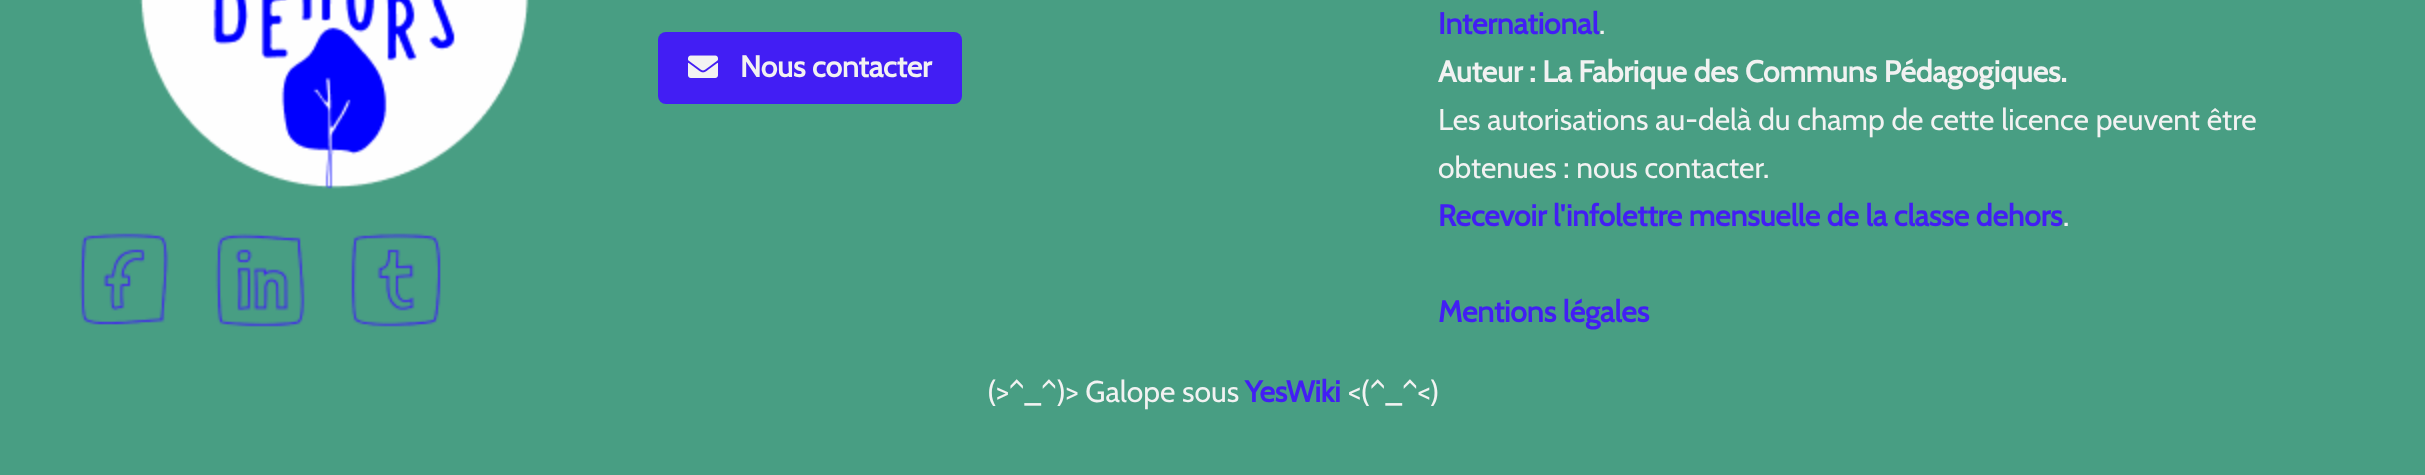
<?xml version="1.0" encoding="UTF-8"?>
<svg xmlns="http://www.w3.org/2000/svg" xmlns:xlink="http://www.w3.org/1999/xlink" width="2425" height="475">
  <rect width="100%" height="100%" fill="#489e83" />
  <image x="139" y="0" width="390" height="189" xlink:href="image1.png" />
  <image x="79" y="233" width="90" height="92" xlink:href="image2.png" />
  <image x="215" y="233" width="90" height="94" xlink:href="image3.png" />
  <image x="351" y="233" width="90" height="94" xlink:href="image4.png" />
  <rect x="658" y="32" width="304" height="72" rx="8" fill="#421ef4" />
  <image x="688" y="55" width="30" height="23" xlink:href="image5.png" />
  <text x="740" y="77" style="font-family: Cabin; font-size: 30px; font-weight: bold; fill: #f2f2f2">Nous contacter</text>
  <text x="1438" y="34" style="font-family: Cabin; font-size: 30px; font-weight: bold; fill: #421ef4">International</text>
  <text x="1599" y="34" style="font-family: Cabin; font-size: 30px; fill: #f2f2f2">.</text>
  <text x="1438" y="82" style="font-family: Cabin; font-size: 30px; font-weight: bold; fill: #f2f2f2">Auteur : La Fabrique des Communs Pédagogiques.</text>
  <text x="1438" y="130" style="font-family: Cabin; font-size: 30px; fill: #f2f2f2">Les autorisations au-delà du champ de cette licence peuvent être</text>
  <text x="1438" y="178" style="font-family: Cabin; font-size: 30px; fill: #f2f2f2">obtenues : nous contacter.</text>
  <text x="1438" y="226" style="font-family: Cabin; font-size: 30px; font-weight: bold; fill: #421ef4">Recevoir l'infolettre mensuelle de la classe dehors</text>
  <text x="2063" y="226" style="font-family: Cabin; font-size: 30px; fill: #f2f2f2">.</text>
  <text x="1438" y="322" style="font-family: Cabin; font-size: 30px; font-weight: bold; fill: #421ef4">Mentions légales</text>
  <text x="987" y="402" style="font-family: Cabin; font-size: 30px; fill: #f2f2f2">(&gt;^_^)&gt; Galope sous</text>
  <text x="1245" y="402" style="font-family: Cabin; font-size: 30px; font-weight: bold; fill: #421ef4">YesWiki</text>
  <text x="1348" y="402" style="font-family: Cabin; font-size: 30px; fill: #f2f2f2">&lt;(^_^&lt;)</text>
</svg>
